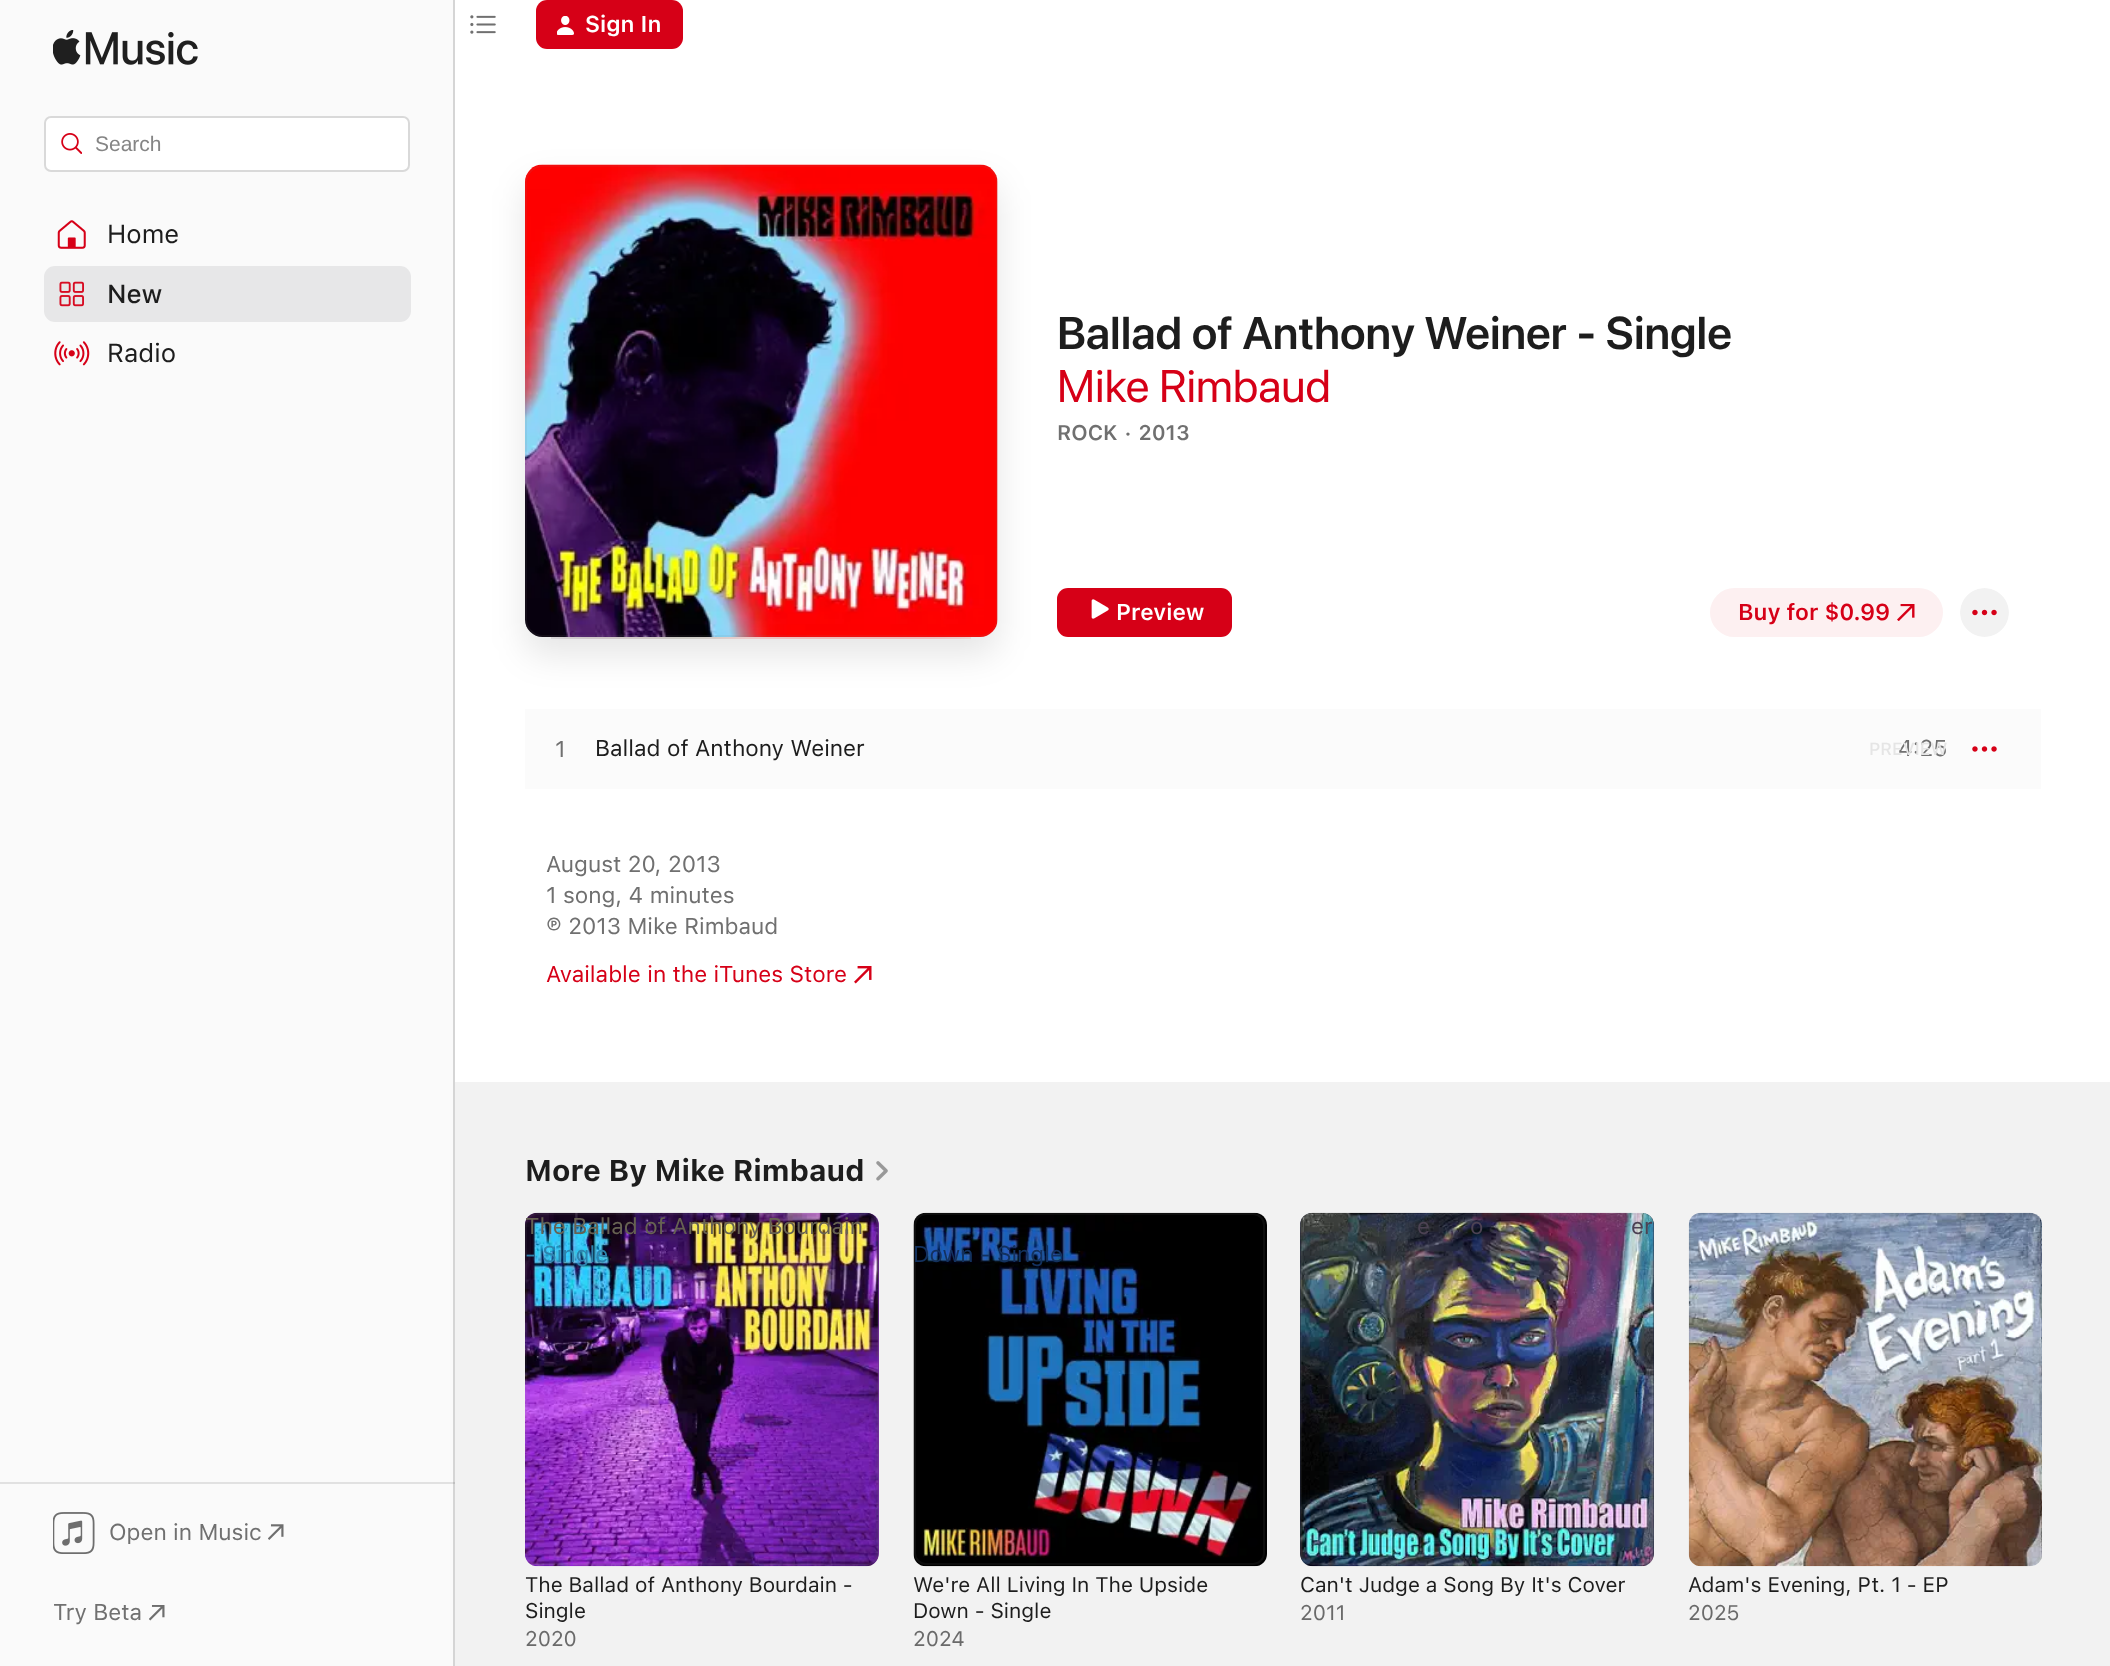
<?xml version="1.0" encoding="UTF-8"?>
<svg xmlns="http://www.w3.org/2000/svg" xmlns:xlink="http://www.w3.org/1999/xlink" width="2110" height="1666">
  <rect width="100%" height="100%" fill="#ffffff" />
  <image x="470" y="15" width="26" height="19" xlink:href="image1.png" />
  <rect x="536" width="147" height="49" rx="11" fill="#d60017" />
  <image x="557" y="16" width="17" height="19" xlink:href="image2.png" />
  <rect width="453" height="1666" fill="#fafafa" />
  <rect y="1482" width="455" height="2" fill="#e1e1e1" />
  <rect x="453" width="2" height="1666" fill="#d5d5d5" />
  <rect x="453" y="1482" width="2" height="2" fill="#c0c0c0" />
  <image x="53" y="30" width="145" height="35" xlink:href="image3.png" />
  <rect x="45" y="117" width="364" height="54" rx="6" fill="#ffffff" stroke="#d9d9d9" stroke-width="2" />
  <image x="61" y="133" width="21" height="21" xlink:href="image4.png" />
  <image x="57" y="220" width="29" height="29" xlink:href="image5.png" />
  <rect x="44" y="266" width="367" height="56" rx="11" fill="#e7e7e8" />
  <image x="59" y="281" width="25" height="26" xlink:href="image6.png" />
  <image x="54" y="341" width="36" height="25" xlink:href="image7.png" />
  <image x="53" y="1512" width="42" height="42" xlink:href="image8.png" />
  <image x="268" y="1524" width="16" height="16" xlink:href="image9.png" />
  <image x="149" y="1605" width="16" height="16" xlink:href="image10.png" />
  <rect x="525" y="182" width="473" height="473" rx="18" fill="#000000" fill-opacity="0.1" filter="blur(17.5px)" />
  <image x="525" y="164" width="473" height="473" xlink:href="image11.png" />
  <rect x="526" y="166" width="471" height="470" rx="17" fill="none" stroke="#808080" stroke-opacity="0.1" stroke-width="2" />
  <image x="551" y="637" width="420" height="2" xlink:href="image12.png" />
  <rect x="1057" y="588" width="175" height="49" rx="11" fill="#d60017" />
  <image x="1091" y="599" width="18" height="20" xlink:href="image13.png" />
  <rect x="1710" y="588" width="233" height="49" rx="24.5" fill="#fdf0f1" />
  <image x="1897" y="604" width="18" height="17" xlink:href="image14.png" />
  <image x="1960" y="588" width="49" height="49" xlink:href="image15.png" />
  <rect x="525" y="709" width="1516" height="80" fill="#fbfbfb" />
  <image x="1972" y="746" width="25" height="6" xlink:href="image16.png" />
  <image x="854" y="966" width="18" height="18" xlink:href="image17.png" />
  <rect x="455" y="1082" width="1655" height="584" fill="#f2f2f2" />
  <image x="876" y="1161" width="12" height="20" xlink:href="image18.png" />
  <rect x="525" y="1213" width="354" height="352" rx="12" fill="#7726a4" />
  <image x="525" y="1212" width="354" height="355" xlink:href="image19.png" />
  <rect x="526" y="1214" width="352" height="350" rx="11" fill="none" stroke="#808080" stroke-opacity="0.1" stroke-width="2" />
  <image x="913" y="1212" width="354" height="355" xlink:href="image20.png" />
  <rect x="915" y="1214" width="349" height="350" rx="11" fill="none" stroke="#808080" stroke-opacity="0.1" stroke-width="2" />
  <rect x="1300" y="1213" width="354" height="352" rx="12" fill="#1b1e37" />
  <image x="1300" y="1212" width="354" height="355" xlink:href="image21.png" />
  <rect x="1301" y="1214" width="352" height="350" rx="11" fill="none" stroke="#808080" stroke-opacity="0.1" stroke-width="2" />
  <image x="1688" y="1212" width="354" height="355" xlink:href="image22.png" />
  <rect x="1690" y="1214" width="350" height="350" rx="11" fill="none" stroke="#808080" stroke-opacity="0.1" stroke-width="2" />
  <text x="585" y="32" style="font-family: SF; font-size: 22.75px; font-weight: 600; fill: #ffffff">Sign In</text>
  <text x="95" y="151" style="font-family: Liberation Sans; font-size: 21px; fill: #858585">Search</text>
  <text x="107" y="243" style="font-family: 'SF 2'; font-size: 26px; fill: #1d1d1d">Home</text>
  <text x="107" y="303" style="font-family: SF; font-size: 26px; font-weight: 500; fill: #1d1d1d">New</text>
  <text x="107" y="362" style="font-family: 'SF 2'; font-size: 26px; fill: #1d1d1d">Radio</text>
  <text x="109" y="1540" style="font-family: 'SF 2'; font-size: 22.75px; fill: #707070">Open in Music</text>
  <text x="53" y="1620" style="font-family: 'SF 2'; font-size: 22.75px; fill: #707070">Try Beta</text>
  <text x="1057" y="349" style="font-family: 'SF 2'; font-size: 45.5px; font-weight: 600; fill: #1d1d1d">Ballad of Anthony Weiner - Single</text>
  <text x="1057" y="402" style="font-family: SF; font-size: 45.5px; fill: #d60017">Mike Rimbaud</text>
  <text x="1057" y="440" style="font-family: SF; font-size: 21px; font-weight: 600; fill: #707070">ROCK · 2013</text>
  <text x="1116" y="620" style="font-family: SF; font-size: 22.75px; font-weight: 600; fill: #ffffff">Preview</text>
  <text x="1738" y="620" style="font-family: SF; font-size: 22.75px; font-weight: 600; fill: #d60017">Buy for $0.99</text>
  <text x="555" y="757" style="font-family: 'SF 2'; font-size: 22.75px; fill: #707070">1</text>
  <text x="595" y="756" style="font-family: 'SF 2'; font-size: 22.75px; fill: #1d1d1d">Ballad of Anthony Weiner</text>
  <text x="1898" y="756" style="font-family: 'SF 2'; font-size: 22.75px; fill: #707070">4:25</text>
  <text x="1869" y="755" style="font-family: SF; font-size: 17.5px; font-weight: 500; fill: #e5e5e5">PREVIEW</text>
  <text x="546" y="872" style="font-family: 'SF 2'; font-size: 22.75px; fill: #707070">August 20, 2013</text>
  <text x="546" y="903" style="font-family: 'SF 2'; font-size: 22.75px; fill: #707070">1 song, 4 minutes</text>
  <text x="546" y="934" style="font-family: 'SF 2'; font-size: 22.75px; fill: #707070">℗ 2013 Mike Rimbaud</text>
  <text x="546" y="982" style="font-family: 'SF 2'; font-size: 22.75px; fill: #d60017">Available in the iTunes Store</text>
  <text x="525" y="1181" style="font-family: SF; font-size: 29.75px; font-weight: bold; fill: #1d1d1d">More By Mike Rimbaud</text>
  <text x="525" y="1234" style="font-family: 'SF 2'; font-size: 22.75px; fill: #666252">The Ballad of Anthony Bourdain</text>
  <text x="525" y="1262" style="font-family: 'SF 2'; font-size: 22.75px; fill: #2d84ae">- Single</text>
  <text x="525" y="1592" style="font-family: 'SF 2'; font-size: 21px; fill: #1d1d1d">The Ballad of Anthony Bourdain -</text>
  <text x="525" y="1618" style="font-family: 'SF 2'; font-size: 21px; fill: #1d1d1d">Single</text>
  <text x="525" y="1646" style="font-family: 'SF 2'; font-size: 21px; fill: #6a6a6a">2020</text>
  <text x="913" y="1262" style="font-family: 'SF 2'; font-size: 22.75px; fill: #13315e">Down - Single</text>
  <text x="913" y="1592" style="font-family: 'SF 2'; font-size: 21px; fill: #1d1d1d">We're All Living In The Upside</text>
  <text x="913" y="1618" style="font-family: 'SF 2'; font-size: 21px; fill: #1d1d1d">Down - Single</text>
  <text x="913" y="1646" style="font-family: 'SF 2'; font-size: 21px; fill: #6a6a6a">2024</text>
  <text x="1417" y="1234" style="font-family: 'SF 2'; font-size: 22.75px; fill: #4c4253">e</text>
  <text x="1470" y="1234" style="font-family: 'SF 2'; font-size: 22.75px; fill: #4c4253">o</text>
  <text x="1631" y="1234" style="font-family: 'SF 2'; font-size: 22.75px; fill: #4c4253">er</text>
  <text x="1300" y="1592" style="font-family: 'SF 2'; font-size: 21px; fill: #1d1d1d">Can't Judge a Song By It's Cover</text>
  <text x="1300" y="1620" style="font-family: 'SF 2'; font-size: 21px; fill: #6a6a6a">2011</text>
  <text x="1688" y="1592" style="font-family: 'SF 2'; font-size: 21px; fill: #1d1d1d">Adam's Evening, Pt. 1 - EP</text>
  <text x="1688" y="1620" style="font-family: 'SF 2'; font-size: 21px; fill: #6a6a6a">2025</text>
</svg>
